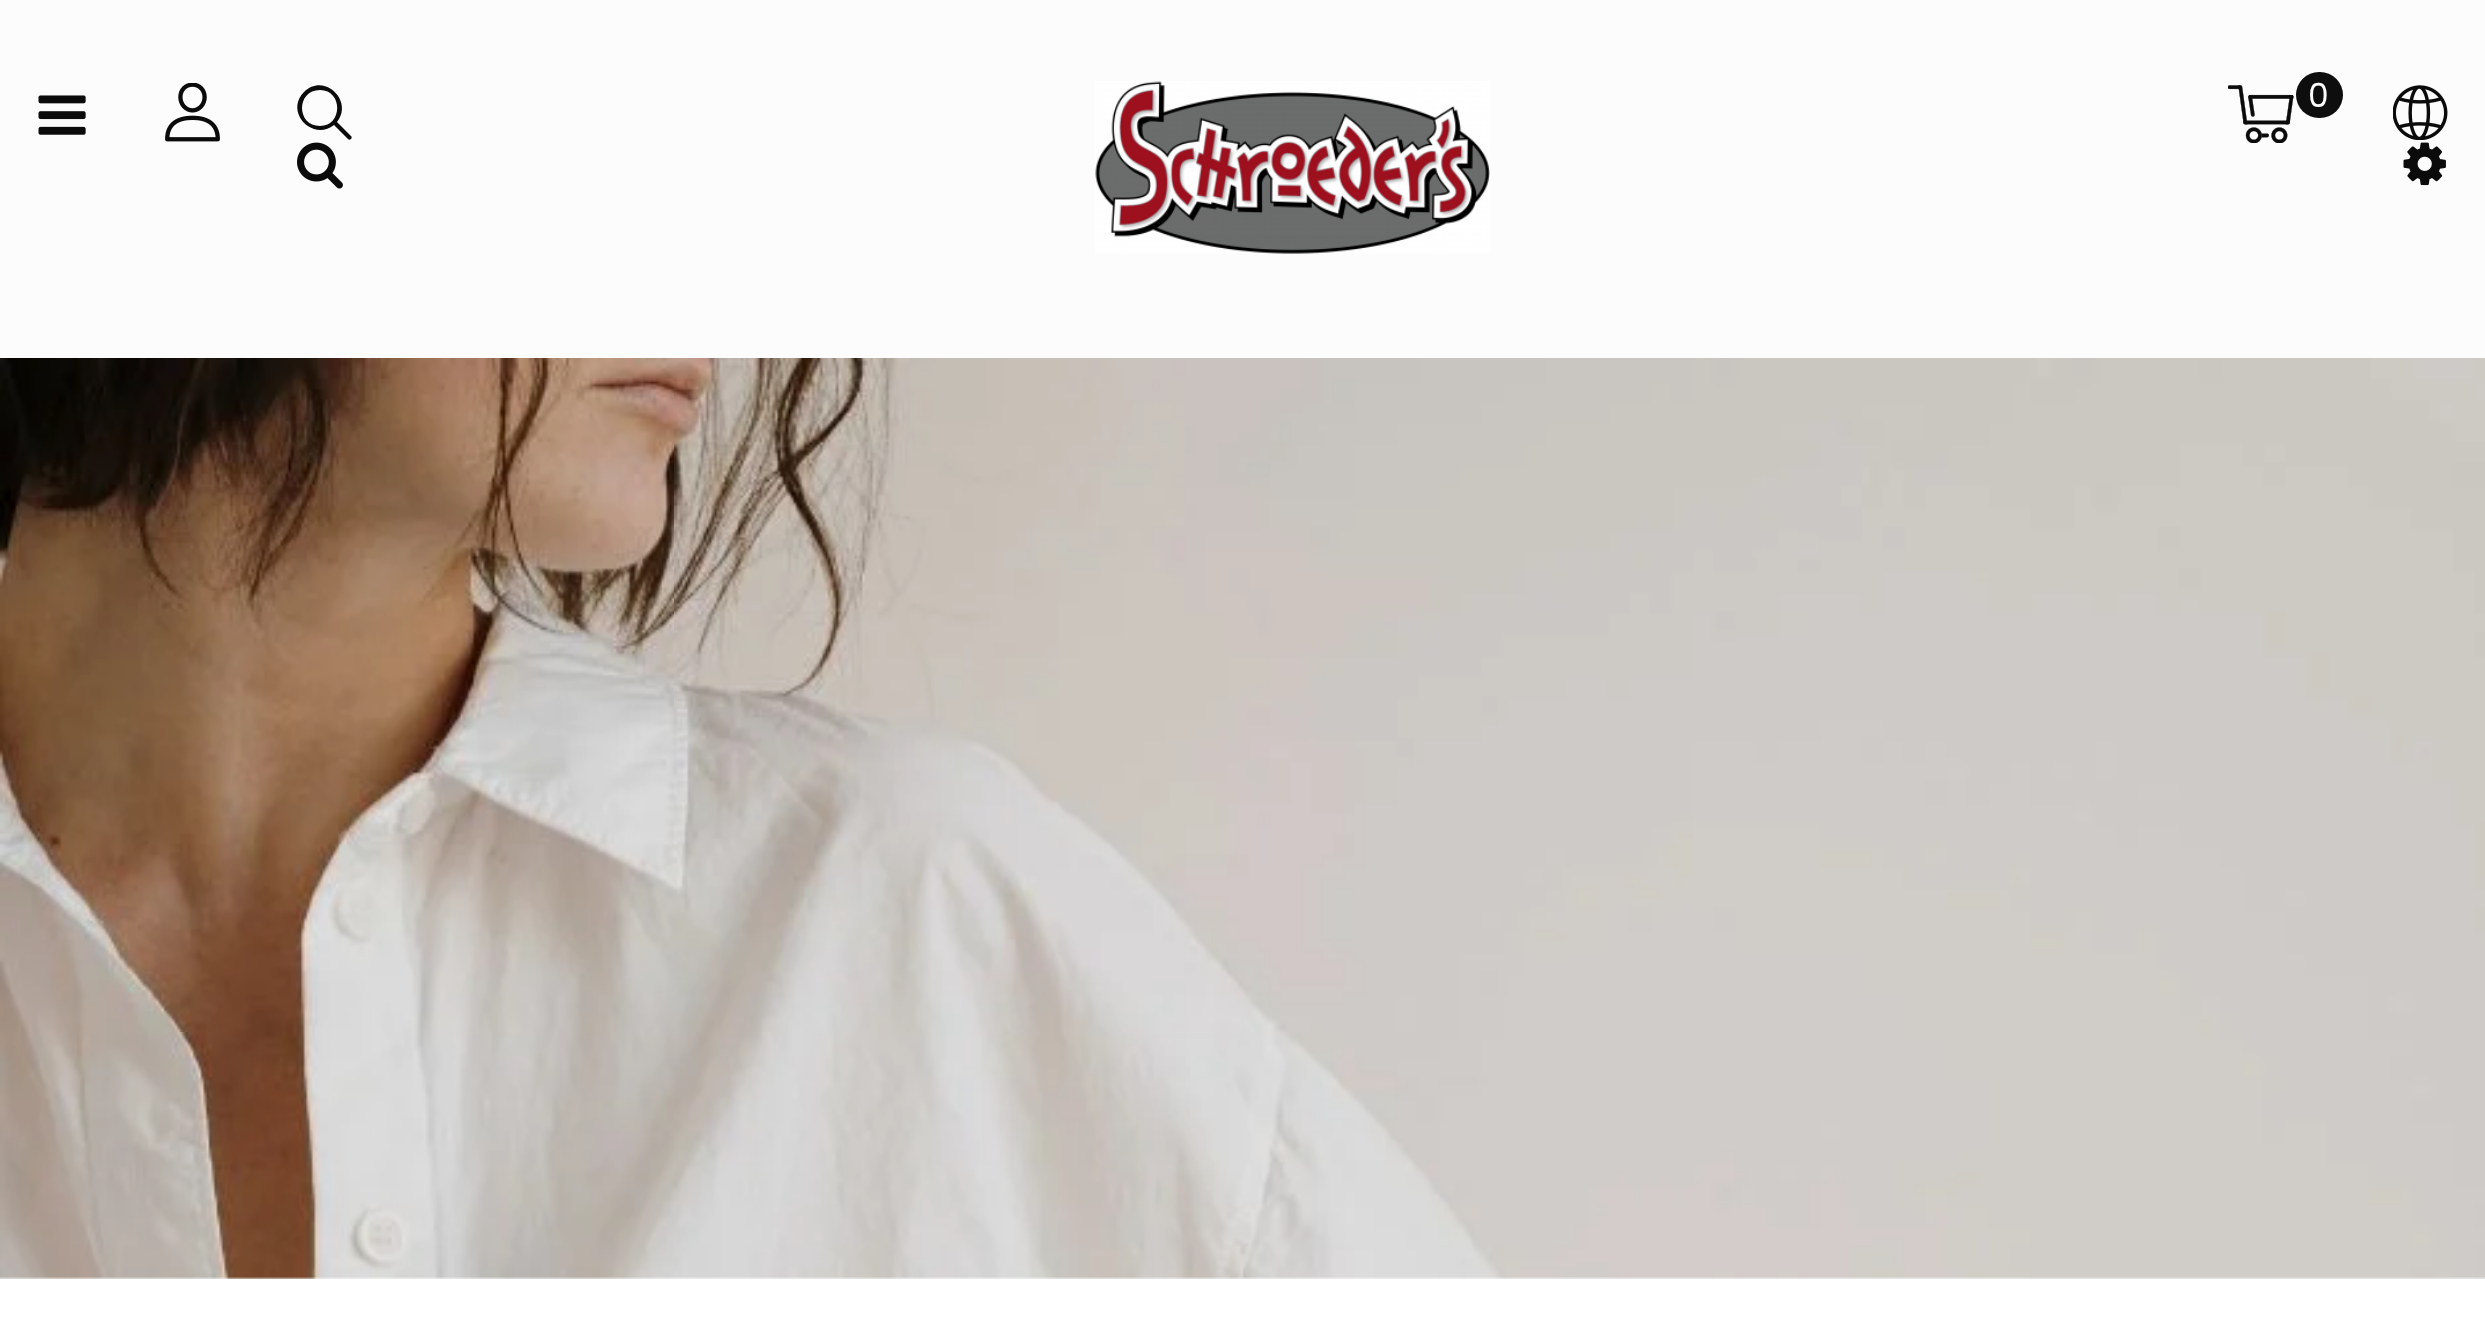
<?xml version="1.0" encoding="UTF-8"?>
<svg xmlns="http://www.w3.org/2000/svg" xmlns:xlink="http://www.w3.org/1999/xlink" width="2485" height="1339">
  <rect width="100%" height="100%" fill="#ffffff" />
  <rect width="2485" height="358" fill="#fcfcfc" />
  <image x="38" y="95" width="48" height="40" xlink:href="image1.png" />
  <image x="165" y="83" width="55" height="59" xlink:href="image2.png" />
  <path d="M 351 136 l -14 -14 c 17 -21 -13 -50 -33 -30 c -20 20 9 50 30 33 l 14 14 c 2 2 5 -1 3 -3 z m -31 -10 c -24 0 -24 -36 0 -36 c 23 0 23 36 0 36 z" fill="#0b0b0b" />
  <image x="297" y="142" width="46" height="47" xlink:href="image3.png" />
  <image x="1095" y="81" width="395" height="173" xlink:href="image4.png" />
  <image x="2228" y="85" width="66" height="58" xlink:href="image5.png" />
  <rect x="2296" y="72" width="47" height="46" rx="23" fill="#0e0e0e" />
  <image x="2393" y="85" width="55" height="55" xlink:href="image6.png" />
  <image x="2403" y="142" width="43" height="44" xlink:href="image7.png" />
  <image x="0" y="358" width="2485" height="921" xlink:href="image8.png" />
  <text x="2308" y="107" style="font-family: Poppins; font-size: 33px; letter-spacing: 2px; fill: #ffffff">0</text>
</svg>
